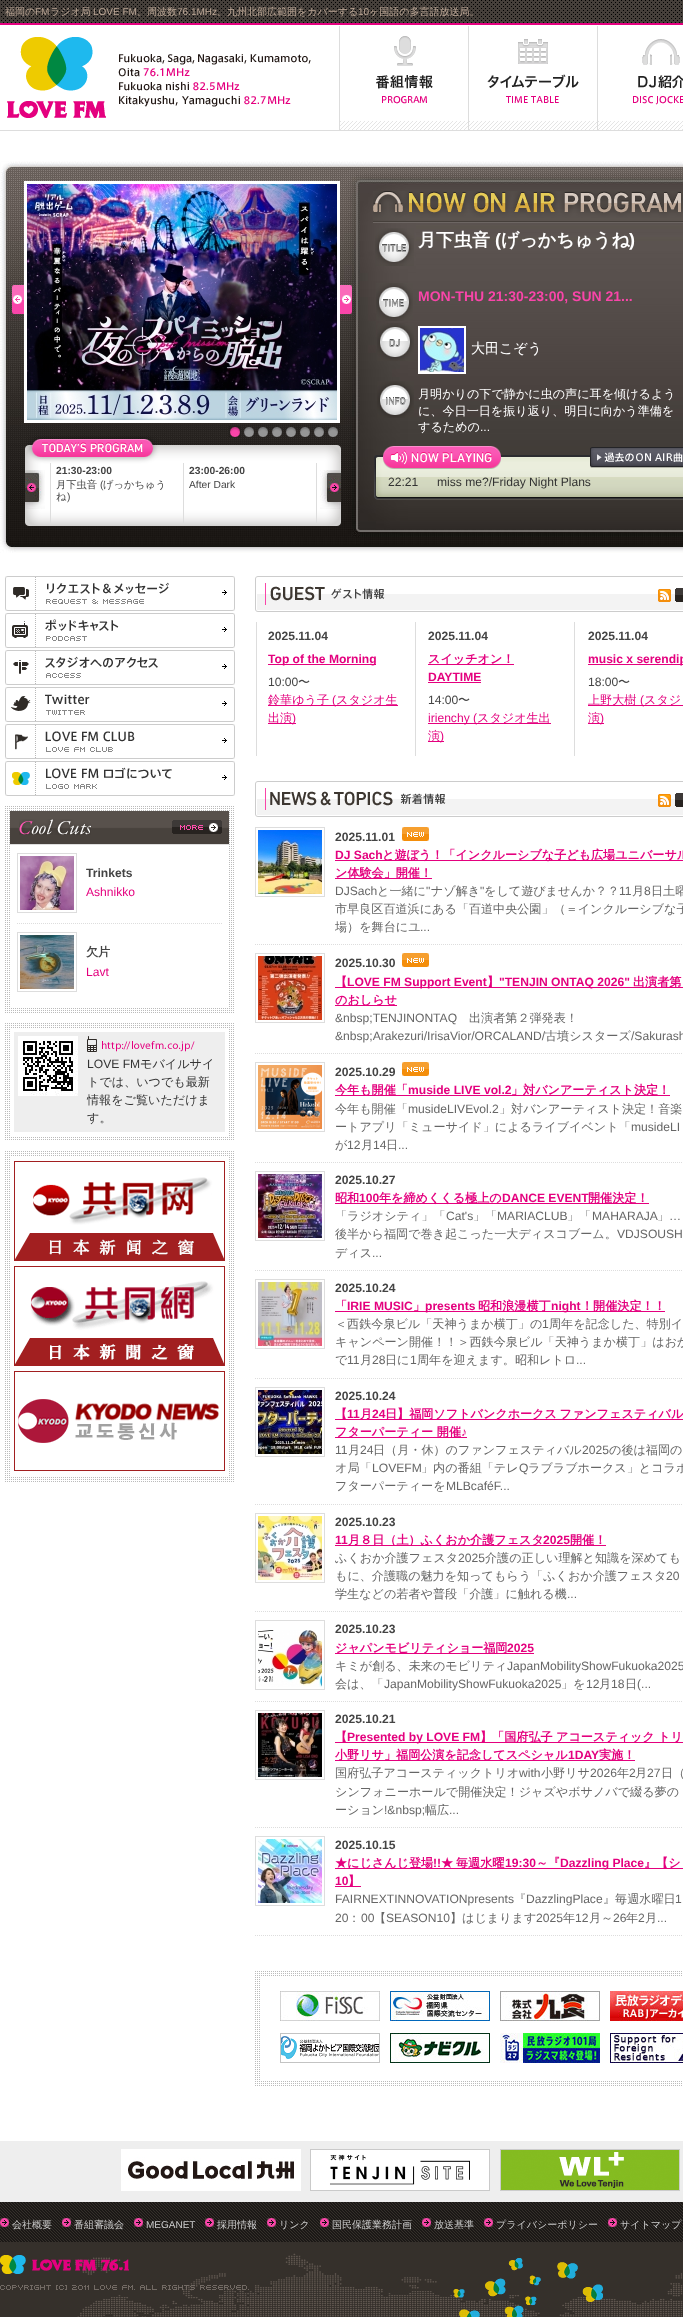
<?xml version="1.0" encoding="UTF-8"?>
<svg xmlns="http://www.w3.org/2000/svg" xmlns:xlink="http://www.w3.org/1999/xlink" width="683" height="2317">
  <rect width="100%" height="100%" fill="#ffffff" />
  <image x="0" y="0" width="683" height="131" xlink:href="image1.png" />
  <image x="7" y="26" width="333" height="104" xlink:href="image2.png" />
  <image x="340" y="26" width="129" height="104" xlink:href="image3.png" />
  <image x="469" y="26" width="129" height="104" xlink:href="image4.png" />
  <image x="598" y="39" width="85" height="91" xlink:href="image5.png" />
  <image x="0" y="161" width="683" height="392" xlink:href="image6.png" />
  <image x="12" y="285" width="12" height="29" xlink:href="image7.png" />
  <rect x="25.5" y="182.5" width="313" height="239" fill="none" stroke="#ffffff" stroke-width="3" />
  <image x="27" y="184" width="310" height="236" xlink:href="image8.png" />
  <image x="340" y="285" width="12" height="29" xlink:href="image9.png" />
  <image x="25" y="436" width="316" height="27" xlink:href="image16.png" />
  <rect x="229" y="426" width="12" height="12" fill="#25211e" />
  <image x="230" y="427" width="10" height="10" xlink:href="image10.png" />
  <image x="244" y="427" width="10" height="10" xlink:href="image11.png" />
  <image x="258" y="427" width="10" height="10" xlink:href="image12.png" />
  <image x="272" y="427" width="10" height="10" xlink:href="image13.png" />
  <image x="286" y="427" width="10" height="10" xlink:href="image14.png" />
  <image x="300" y="427" width="10" height="10" xlink:href="image11.png" />
  <image x="314" y="427" width="10" height="10" xlink:href="image12.png" />
  <image x="328" y="427" width="10" height="10" xlink:href="image13.png" />
  <image x="25" y="463" width="316" height="63" xlink:href="image15.png" />
  <image x="25" y="470" width="20" height="39" xlink:href="image17.png" />
  <rect x="316" y="463" width="1" height="60" fill="#dddddd" />
  <rect x="50" y="463" width="1" height="60" fill="#dddddd" />
  <rect x="183" y="463" width="1" height="60" fill="#dddddd" />
  <image x="320" y="470" width="21" height="39" xlink:href="image18.png" />
  <image x="373" y="191" width="310" height="32" xlink:href="image19.png" />
  <image x="375" y="228" width="39" height="38" xlink:href="image20.png" />
  <image x="376" y="283" width="37" height="38" xlink:href="image21.png" />
  <image x="377" y="323" width="37" height="38" xlink:href="image22.png" />
  <rect x="419" y="327" width="46" height="46" fill="none" stroke="#ffffff" stroke-width="2" />
  <image x="420" y="328" width="44" height="44" xlink:href="image23.png" />
  <image x="377" y="381" width="37" height="37" xlink:href="image24.png" />
  <image x="374" y="469" width="309" height="31" xlink:href="image25.png" />
  <image x="374" y="446" width="309" height="23" xlink:href="image26.png" />
  <image x="5" y="576" width="230" height="35" xlink:href="image27.png" />
  <image x="5" y="613" width="230" height="35" xlink:href="image28.png" />
  <image x="5" y="650" width="230" height="35" xlink:href="image29.png" />
  <image x="5" y="687" width="230" height="35" xlink:href="image30.png" />
  <image x="5" y="724" width="230" height="35" xlink:href="image31.png" />
  <image x="5" y="761" width="230" height="35" xlink:href="image32.png" />
  <image x="5" y="806" width="229" height="207" xlink:href="image33.png" />
  <image x="10" y="811" width="219" height="33" xlink:href="image34.png" />
  <rect x="10" y="844" width="219" height="1" fill="#dddddd" />
  <image x="19" y="819" width="72" height="16" xlink:href="image35.png" />
  <image x="172" y="820" width="50" height="14" xlink:href="image36.png" />
  <rect x="11" y="846" width="217" height="161" fill="#ffffff" />
  <path d="M 17 923.5 h 205" fill="none" stroke="#dddddd" stroke-dasharray="1 1" />
  <rect x="17.5" y="853.5" width="59" height="59" fill="none" stroke="#dddddd" />
  <image x="20" y="856" width="54" height="54" xlink:href="image37.png" />
  <rect x="17.5" y="932.5" width="59" height="59" fill="none" stroke="#dddddd" />
  <image x="20" y="935" width="54" height="54" xlink:href="image38.png" />
  <image x="5" y="1023" width="229" height="117" xlink:href="image39.png" />
  <rect x="11" y="1029" width="217" height="107" fill="#ffffff" />
  <rect x="14" y="1032" width="211" height="100" fill="#eeeeee" />
  <image x="18" y="1036" width="60" height="60" xlink:href="image40.png" />
  <image x="87" y="1036" width="108" height="16" xlink:href="image41.png" />
  <image x="5" y="1151" width="229" height="331" xlink:href="image42.png" />
  <rect x="11" y="1157" width="217" height="319" fill="#ffffff" />
  <image x="14" y="1161" width="211" height="100" xlink:href="image43.png" />
  <image x="14" y="1266" width="211" height="100" xlink:href="image44.png" />
  <image x="14" y="1371" width="211" height="100" xlink:href="image45.png" />
  <image x="255" y="576" width="428" height="36" xlink:href="image46.png" />
  <image x="270" y="586" width="115" height="15" xlink:href="image47.png" />
  <image x="658" y="589" width="13" height="13" xlink:href="image48.png" />
  <image x="675" y="588" width="8" height="14" xlink:href="image49.png" />
  <image x="256" y="622" width="319" height="134" xlink:href="image50.png" />
  <rect x="268" y="664" width="108" height="1" fill="#e4007e" />
  <rect x="268" y="705" width="130" height="1" fill="#e4007e" />
  <rect x="268" y="723" width="28" height="1" fill="#e4007e" />
  <rect x="428" y="664" width="86" height="1" fill="#e4007e" />
  <rect x="428" y="682" width="53" height="1" fill="#e4007e" />
  <rect x="428" y="723" width="123" height="1" fill="#e4007e" />
  <rect x="428" y="741" width="16" height="1" fill="#e4007e" />
  <rect x="588" y="664" width="95" height="1" fill="#e4007e" />
  <rect x="588" y="705" width="95" height="1" fill="#e4007e" />
  <rect x="588" y="723" width="16" height="1" fill="#e4007e" />
  <image x="255" y="781" width="428" height="36" xlink:href="image46.png" />
  <image x="270" y="791" width="176" height="15" xlink:href="image51.png" />
  <image x="658" y="794" width="13" height="13" xlink:href="image48.png" />
  <image x="675" y="793" width="8" height="14" xlink:href="image49.png" />
  <path d="M 255 944.5 h 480" fill="none" stroke="#dddddd" stroke-dasharray="1 1" />
  <rect x="255.5" y="827.5" width="69" height="69" fill="none" stroke="#dddddd" />
  <image x="258" y="830" width="64" height="64" xlink:href="image52.png" />
  <image x="402" y="827" width="27" height="14" xlink:href="image53.png" />
  <rect x="335" y="860" width="348" height="1" fill="#e4007e" />
  <rect x="335" y="878" width="97" height="1" fill="#e4007e" />
  <path d="M 255 1053.5 h 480" fill="none" stroke="#dddddd" stroke-dasharray="1 1" />
  <rect x="255.5" y="953.5" width="69" height="69" fill="none" stroke="#dddddd" />
  <image x="258" y="956" width="64" height="64" xlink:href="image54.png" />
  <image x="402" y="953" width="27" height="14" xlink:href="image53.png" />
  <rect x="335" y="987" width="348" height="1" fill="#e4007e" />
  <rect x="335" y="1005" width="62" height="1" fill="#e4007e" />
  <path d="M 255 1162.5 h 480" fill="none" stroke="#dddddd" stroke-dasharray="1 1" />
  <rect x="255.5" y="1062.5" width="69" height="69" fill="none" stroke="#dddddd" />
  <image x="258" y="1065" width="64" height="64" xlink:href="image55.png" />
  <image x="402" y="1062" width="27" height="14" xlink:href="image53.png" />
  <rect x="335" y="1095" width="335" height="1" fill="#e4007e" />
  <path d="M 255 1270.5 h 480" fill="none" stroke="#dddddd" stroke-dasharray="1 1" />
  <rect x="255.5" y="1171.5" width="69" height="69" fill="none" stroke="#dddddd" />
  <image x="258" y="1174" width="64" height="64" xlink:href="image56.png" />
  <rect x="335" y="1203" width="314" height="1" fill="#e4007e" />
  <path d="M 255 1378.5 h 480" fill="none" stroke="#dddddd" stroke-dasharray="1 1" />
  <rect x="255.5" y="1279.5" width="69" height="69" fill="none" stroke="#dddddd" />
  <image x="258" y="1282" width="64" height="64" xlink:href="image57.png" />
  <rect x="335" y="1311" width="330" height="1" fill="#e4007e" />
  <path d="M 255 1504.5 h 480" fill="none" stroke="#dddddd" stroke-dasharray="1 1" />
  <rect x="255.5" y="1387.5" width="69" height="69" fill="none" stroke="#dddddd" />
  <image x="258" y="1390" width="64" height="64" xlink:href="image58.png" />
  <rect x="335" y="1419" width="348" height="1" fill="#e4007e" />
  <rect x="335" y="1437" width="132" height="1" fill="#e4007e" />
  <path d="M 255 1611.5 h 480" fill="none" stroke="#dddddd" stroke-dasharray="1 1" />
  <rect x="255.5" y="1513.5" width="69" height="69" fill="none" stroke="#dddddd" />
  <image x="258" y="1516" width="64" height="64" xlink:href="image59.png" />
  <rect x="335" y="1545" width="271" height="1" fill="#e4007e" />
  <path d="M 255 1701.5 h 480" fill="none" stroke="#dddddd" stroke-dasharray="1 1" />
  <rect x="255.5" y="1620.5" width="69" height="69" fill="none" stroke="#dddddd" />
  <image x="258" y="1630" width="64" height="57" xlink:href="image60.png" />
  <rect x="335" y="1653" width="199" height="1" fill="#e4007e" />
  <path d="M 255 1827.5 h 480" fill="none" stroke="#dddddd" stroke-dasharray="1 1" />
  <rect x="255.5" y="1710.5" width="69" height="69" fill="none" stroke="#dddddd" />
  <image x="258" y="1713" width="64" height="64" xlink:href="image61.png" />
  <rect x="335" y="1742" width="348" height="1" fill="#e4007e" />
  <rect x="335" y="1760" width="300" height="1" fill="#e4007e" />
  <path d="M 255 1935.5 h 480" fill="none" stroke="#dddddd" stroke-dasharray="1 1" />
  <rect x="255.5" y="1836.5" width="69" height="69" fill="none" stroke="#dddddd" />
  <image x="258" y="1839" width="64" height="64" xlink:href="image62.png" />
  <rect x="335" y="1868" width="348" height="1" fill="#e4007e" />
  <rect x="335" y="1886" width="26" height="1" fill="#e4007e" />
  <image x="255" y="1971" width="427" height="115" xlink:href="image63.png" />
  <rect x="261" y="1977" width="421" height="103" fill="#ffffff" />
  <image x="280" y="1991" width="100" height="30" xlink:href="image64.png" />
  <image x="390" y="1991" width="100" height="30" xlink:href="image65.png" />
  <image x="500" y="1991" width="100" height="30" xlink:href="image66.png" />
  <image x="610" y="1991" width="73" height="30" xlink:href="image67.png" />
  <image x="280" y="2033" width="100" height="30" xlink:href="image68.png" />
  <image x="390" y="2033" width="100" height="30" xlink:href="image69.png" />
  <image x="500" y="2033" width="100" height="30" xlink:href="image70.png" />
  <image x="610" y="2033" width="73" height="30" xlink:href="image71.png" />
  <rect y="2141" width="683" height="61" fill="#eeeeee" />
  <image x="121" y="2149" width="180" height="42" xlink:href="image72.png" />
  <image x="310" y="2149" width="180" height="42" xlink:href="image73.png" />
  <image x="500" y="2149" width="180" height="42" xlink:href="image74.png" />
  <image x="0" y="2202" width="683" height="40" xlink:href="image75.png" />
  <image x="0" y="2218" width="9" height="9" xlink:href="image76.png" />
  <image x="62" y="2218" width="9" height="9" xlink:href="image76.png" />
  <image x="134" y="2218" width="9" height="9" xlink:href="image76.png" />
  <image x="205" y="2218" width="9" height="9" xlink:href="image76.png" />
  <image x="267" y="2218" width="9" height="9" xlink:href="image76.png" />
  <image x="320" y="2218" width="9" height="9" xlink:href="image76.png" />
  <image x="422" y="2218" width="9" height="9" xlink:href="image76.png" />
  <image x="484" y="2218" width="9" height="9" xlink:href="image76.png" />
  <image x="608" y="2218" width="9" height="9" xlink:href="image76.png" />
  <image x="0" y="2242" width="683" height="75" xlink:href="image77.png" />
  <image x="0" y="2255" width="249" height="35" xlink:href="image78.png" />
  <text x="5" y="15" style="font-family: WenQuanYi Zen Hei; font-size: 10px; font-weight: 500; fill: #bca796">福岡の</text>
  <text x="35" y="15" style="font-family: Liberation Sans; font-size: 10px; fill: #bca796">FM</text>
  <text x="50" y="15" style="font-family: WenQuanYi Zen Hei; font-size: 10px; font-weight: 500; fill: #bca796">ラジオ局</text>
  <text x="93" y="15" style="font-family: Liberation Sans; font-size: 10px; fill: #bca796">LOVE FM</text>
  <text x="137" y="15" style="font-family: WenQuanYi Zen Hei; font-size: 10px; font-weight: 500; fill: #bca796">。周波数</text>
  <text x="177" y="15" style="font-family: Liberation Sans; font-size: 10px; fill: #bca796">76.1MHz</text>
  <text x="217" y="15" style="font-family: WenQuanYi Zen Hei; font-size: 10px; font-weight: 500; fill: #bca796">。九州北部広範囲をカバーする</text>
  <text x="358" y="15" style="font-family: Liberation Sans; font-size: 10px; fill: #bca796">10</text>
  <text x="369" y="15" style="font-family: WenQuanYi Zen Hei; font-size: 10px; font-weight: 500; fill: #bca796">ヶ国語の多言語放送局。</text>
  <text x="56" y="474" style="font-family: Liberation Sans; font-size: 10.25px; font-weight: bold; fill: #444444">21:30-23:00</text>
  <text x="56" y="488" style="font-family: WenQuanYi Zen Hei; font-size: 10.25px; font-weight: 500; fill: #444444">月下虫音</text>
  <text x="100" y="488" style="font-family: Liberation Sans; font-size: 10.25px; fill: #444444">(</text>
  <text x="103" y="488" style="font-family: WenQuanYi Zen Hei; font-size: 10.25px; font-weight: 500; fill: #444444">げっかちゅう</text>
  <text x="56" y="500" style="font-family: WenQuanYi Zen Hei; font-size: 10.25px; font-weight: 500; fill: #444444">ね</text>
  <text x="67" y="500" style="font-family: Liberation Sans; font-size: 10.25px; fill: #444444">)</text>
  <text x="189" y="474" style="font-family: Liberation Sans; font-size: 10.25px; font-weight: bold; fill: #444444">23:00-26:00</text>
  <text x="189" y="488" style="font-family: Liberation Sans; font-size: 10.25px; fill: #444444">After Dark</text>
  <text x="418" y="246" style="font-family: WenQuanYi Zen Hei; font-size: 18px; font-weight: bold; fill: #ffffff">月下虫音</text>
  <text x="495" y="246" style="font-family: Liberation Sans; font-size: 18px; font-weight: bold; fill: #ffffff">(</text>
  <text x="501" y="246" style="font-family: WenQuanYi Zen Hei; font-size: 18px; font-weight: bold; fill: #ffffff">げっかちゅうね</text>
  <text x="629" y="246" style="font-family: Liberation Sans; font-size: 18px; font-weight: bold; fill: #ffffff">)</text>
  <text x="418" y="301" style="font-family: Liberation Sans; font-size: 14px; font-weight: bold; fill: #f945a9">MON-THU 21:30-23:00, SUN 21...</text>
  <text x="471" y="353" style="font-family: WenQuanYi Zen Hei; font-size: 14px; font-weight: 500; fill: #ffffff">大田こぞう</text>
  <text x="418" y="398" style="font-family: WenQuanYi Zen Hei; font-size: 12.1px; font-weight: 500; fill: #ffffff">月明かりの下で静かに虫の声に耳を傾けるよう</text>
  <text x="418" y="415" style="font-family: WenQuanYi Zen Hei; font-size: 12.1px; font-weight: 500; fill: #ffffff">に、今日一日を振り返り、明日に向かう準備を</text>
  <text x="418" y="431" style="font-family: WenQuanYi Zen Hei; font-size: 12.1px; font-weight: 500; fill: #ffffff">するための</text>
  <text x="480" y="431" style="font-family: Liberation Sans; font-size: 12.1px; fill: #ffffff">...</text>
  <text x="388" y="486" style="font-family: Liberation Sans; font-size: 12.1px; fill: #333333">22:21</text>
  <text x="437" y="486" style="font-family: Liberation Sans; font-size: 12.1px; fill: #333333">miss me?/Friday Night Plans</text>
  <text x="86" y="877" style="font-family: Liberation Sans; font-size: 12.1px; font-weight: bold; fill: #444444">Trinkets</text>
  <text x="86" y="896" style="font-family: Liberation Sans; font-size: 12.1px; fill: #e4007e">Ashnikko</text>
  <text x="86" y="956" style="font-family: WenQuanYi Zen Hei; font-size: 12.1px; font-weight: bold; fill: #444444">欠片</text>
  <text x="86" y="976" style="font-family: Liberation Sans; font-size: 12.1px; fill: #e4007e">Lavt</text>
  <text x="87" y="1068" style="font-family: Liberation Sans; font-size: 12.1px; fill: #333333">LOVE FM</text>
  <text x="140" y="1068" style="font-family: WenQuanYi Zen Hei; font-size: 12.1px; font-weight: 500; fill: #333333">モバイルサイ</text>
  <text x="87" y="1086" style="font-family: WenQuanYi Zen Hei; font-size: 12.1px; font-weight: 500; fill: #333333">トでは、いつでも最新</text>
  <text x="87" y="1104" style="font-family: WenQuanYi Zen Hei; font-size: 12.1px; font-weight: 500; fill: #333333">情報をご覧いただけま</text>
  <text x="87" y="1122" style="font-family: WenQuanYi Zen Hei; font-size: 12.1px; font-weight: 500; fill: #333333">す。</text>
  <text x="268" y="640" style="font-family: Liberation Sans; font-size: 12.1px; font-weight: bold; fill: #444444">2025.11.04</text>
  <text x="268" y="663" style="font-family: Liberation Sans; font-size: 12.1px; font-weight: bold; fill: #e4007e">Top of the Morning</text>
  <text x="268" y="686" style="font-family: Liberation Sans; font-size: 12.1px; fill: #444444">10:00</text>
  <text x="298" y="686" style="font-family: WenQuanYi Zen Hei; font-size: 12.1px; font-weight: 500; fill: #444444">〜</text>
  <text x="268" y="704" style="font-family: WenQuanYi Zen Hei; font-size: 12.1px; font-weight: 500; fill: #e4007e">鈴華ゆう子</text>
  <text x="332" y="704" style="font-family: Liberation Sans; font-size: 12.1px; fill: #e4007e">(</text>
  <text x="336" y="704" style="font-family: WenQuanYi Zen Hei; font-size: 12.1px; font-weight: 500; fill: #e4007e">スタジオ生</text>
  <text x="268" y="722" style="font-family: WenQuanYi Zen Hei; font-size: 12.1px; font-weight: 500; fill: #e4007e">出演</text>
  <text x="292" y="722" style="font-family: Liberation Sans; font-size: 12.1px; fill: #e4007e">)</text>
  <text x="428" y="640" style="font-family: Liberation Sans; font-size: 12.1px; font-weight: bold; fill: #444444">2025.11.04</text>
  <text x="428" y="663" style="font-family: WenQuanYi Zen Hei; font-size: 12.1px; font-weight: bold; fill: #e4007e">スイッチオン！</text>
  <text x="428" y="681" style="font-family: Liberation Sans; font-size: 12.1px; font-weight: bold; fill: #e4007e">DAYTIME</text>
  <text x="428" y="704" style="font-family: Liberation Sans; font-size: 12.1px; fill: #444444">14:00</text>
  <text x="458" y="704" style="font-family: WenQuanYi Zen Hei; font-size: 12.1px; font-weight: 500; fill: #444444">〜</text>
  <text x="428" y="722" style="font-family: Liberation Sans; font-size: 12.1px; fill: #e4007e">irienchy (</text>
  <text x="477" y="722" style="font-family: WenQuanYi Zen Hei; font-size: 12.1px; font-weight: 500; fill: #e4007e">スタジオ生出</text>
  <text x="428" y="740" style="font-family: WenQuanYi Zen Hei; font-size: 12.1px; font-weight: 500; fill: #e4007e">演</text>
  <text x="440" y="740" style="font-family: Liberation Sans; font-size: 12.1px; fill: #e4007e">)</text>
  <text x="588" y="640" style="font-family: Liberation Sans; font-size: 12.1px; font-weight: bold; fill: #444444">2025.11.04</text>
  <text x="588" y="663" style="font-family: Liberation Sans; font-size: 12.1px; font-weight: bold; fill: #e4007e">music x serendip</text>
  <text x="588" y="686" style="font-family: Liberation Sans; font-size: 12.1px; fill: #444444">18:00</text>
  <text x="618" y="686" style="font-family: WenQuanYi Zen Hei; font-size: 12.1px; font-weight: 500; fill: #444444">〜</text>
  <text x="588" y="704" style="font-family: WenQuanYi Zen Hei; font-size: 12.1px; font-weight: 500; fill: #e4007e">上野大樹</text>
  <text x="640" y="704" style="font-family: Liberation Sans; font-size: 12.1px; fill: #e4007e">(</text>
  <text x="644" y="704" style="font-family: WenQuanYi Zen Hei; font-size: 12.1px; font-weight: 500; fill: #e4007e">スタジ</text>
  <text x="588" y="722" style="font-family: WenQuanYi Zen Hei; font-size: 12.1px; font-weight: 500; fill: #e4007e">演</text>
  <text x="600" y="722" style="font-family: Liberation Sans; font-size: 12.1px; fill: #e4007e">)</text>
  <text x="335" y="841" style="font-family: Liberation Sans; font-size: 12.1px; font-weight: bold; fill: #444444">2025.11.01</text>
  <text x="335" y="859" style="font-family: Liberation Sans; font-size: 12.1px; font-weight: bold; fill: #e4007e">DJ Sach</text>
  <text x="382" y="859" style="font-family: WenQuanYi Zen Hei; font-size: 12.1px; font-weight: bold; fill: #e4007e">と遊ぼう！「インクルーシブな子ども広場ユニバーサル</text>
  <text x="335" y="877" style="font-family: WenQuanYi Zen Hei; font-size: 12.1px; font-weight: bold; fill: #e4007e">ン体験会」開催！</text>
  <text x="335" y="895" style="font-family: Liberation Sans; font-size: 12.1px; fill: #666666">DJSach</text>
  <text x="377" y="895" style="font-family: WenQuanYi Zen Hei; font-size: 12.1px; font-weight: 500; fill: #666666">と一緒に</text>
  <text x="426" y="895" style="font-family: Liberation Sans; font-size: 12.1px; fill: #666666">"</text>
  <text x="431" y="895" style="font-family: WenQuanYi Zen Hei; font-size: 12.1px; font-weight: 500; fill: #666666">ナゾ解き</text>
  <text x="480" y="895" style="font-family: Liberation Sans; font-size: 12.1px; fill: #666666">"</text>
  <text x="484" y="895" style="font-family: WenQuanYi Zen Hei; font-size: 12.1px; font-weight: 500; fill: #666666">をして遊びませんか？？</text>
  <text x="619" y="895" style="font-family: Liberation Sans; font-size: 12.1px; fill: #666666">11</text>
  <text x="632" y="895" style="font-family: WenQuanYi Zen Hei; font-size: 12.1px; font-weight: 500; fill: #666666">月</text>
  <text x="644" y="895" style="font-family: Liberation Sans; font-size: 12.1px; fill: #666666">8</text>
  <text x="651" y="895" style="font-family: WenQuanYi Zen Hei; font-size: 12.1px; font-weight: 500; fill: #666666">日土曜</text>
  <text x="335" y="913" style="font-family: WenQuanYi Zen Hei; font-size: 12.1px; font-weight: 500; fill: #666666">市早良区百道浜にある「百道中央公園」（＝インクルーシブな子</text>
  <text x="335" y="931" style="font-family: WenQuanYi Zen Hei; font-size: 12.1px; font-weight: 500; fill: #666666">場）を舞台にユ</text>
  <text x="420" y="931" style="font-family: Liberation Sans; font-size: 12.1px; fill: #666666">...</text>
  <text x="335" y="967" style="font-family: Liberation Sans; font-size: 12.1px; font-weight: bold; fill: #444444">2025.10.30</text>
  <text x="335" y="986" style="font-family: WenQuanYi Zen Hei; font-size: 12.1px; font-weight: bold; fill: #e4007e">【</text>
  <text x="347" y="986" style="font-family: Liberation Sans; font-size: 12.1px; font-weight: bold; fill: #e4007e">LOVE FM Support Event</text>
  <text x="487" y="986" style="font-family: WenQuanYi Zen Hei; font-size: 12.1px; font-weight: bold; fill: #e4007e">】</text>
  <text x="499" y="986" style="font-family: Liberation Sans; font-size: 12.1px; font-weight: bold; fill: #e4007e">"TENJIN ONTAQ 2026"</text>
  <text x="633" y="986" style="font-family: WenQuanYi Zen Hei; font-size: 12.1px; font-weight: bold; fill: #e4007e">出演者第</text>
  <text x="335" y="1004" style="font-family: WenQuanYi Zen Hei; font-size: 12.1px; font-weight: bold; fill: #e4007e">のおしらせ</text>
  <text x="335" y="1022" style="font-family: Liberation Sans; font-size: 12.1px; fill: #666666">&amp;nbsp;TENJINONTAQ</text>
  <text x="469" y="1022" style="font-family: WenQuanYi Zen Hei; font-size: 12.1px; font-weight: 500; fill: #666666">出演者第２弾発表！</text>
  <text x="335" y="1040" style="font-family: Liberation Sans; font-size: 12.1px; fill: #666666">&amp;nbsp;Arakezuri/IrisaVior/ORCALAND/</text>
  <text x="545" y="1040" style="font-family: WenQuanYi Zen Hei; font-size: 12.1px; font-weight: 500; fill: #666666">古墳シスターズ</text>
  <text x="631" y="1040" style="font-family: Liberation Sans; font-size: 12.1px; fill: #666666">/Sakurash</text>
  <text x="335" y="1076" style="font-family: Liberation Sans; font-size: 12.1px; font-weight: bold; fill: #444444">2025.10.29</text>
  <text x="335" y="1094" style="font-family: WenQuanYi Zen Hei; font-size: 12.1px; font-weight: bold; fill: #e4007e">今年も開催「</text>
  <text x="408" y="1094" style="font-family: Liberation Sans; font-size: 12.1px; font-weight: bold; fill: #e4007e">muside LIVE vol.2</text>
  <text x="511" y="1094" style="font-family: WenQuanYi Zen Hei; font-size: 12.1px; font-weight: bold; fill: #e4007e">」対バンアーティスト決定！</text>
  <text x="335" y="1113" style="font-family: WenQuanYi Zen Hei; font-size: 12.1px; font-weight: 500; fill: #666666">今年も開催「</text>
  <text x="408" y="1113" style="font-family: Liberation Sans; font-size: 12.1px; fill: #666666">musideLIVEvol.2</text>
  <text x="499" y="1113" style="font-family: WenQuanYi Zen Hei; font-size: 12.1px; font-weight: 500; fill: #666666">」対バンアーティスト決定！音楽</text>
  <text x="335" y="1131" style="font-family: WenQuanYi Zen Hei; font-size: 12.1px; font-weight: 500; fill: #666666">ートアプリ「ミューサイド」によるライブイベント「</text>
  <text x="631" y="1131" style="font-family: Liberation Sans; font-size: 12.1px; fill: #666666">musideLI</text>
  <text x="335" y="1149" style="font-family: WenQuanYi Zen Hei; font-size: 12.1px; font-weight: 500; fill: #666666">が</text>
  <text x="347" y="1149" style="font-family: Liberation Sans; font-size: 12.1px; fill: #666666">12</text>
  <text x="361" y="1149" style="font-family: WenQuanYi Zen Hei; font-size: 12.1px; font-weight: 500; fill: #666666">月</text>
  <text x="373" y="1149" style="font-family: Liberation Sans; font-size: 12.1px; fill: #666666">14</text>
  <text x="386" y="1149" style="font-family: WenQuanYi Zen Hei; font-size: 12.1px; font-weight: 500; fill: #666666">日</text>
  <text x="398" y="1149" style="font-family: Liberation Sans; font-size: 12.1px; fill: #666666">...</text>
  <text x="335" y="1184" style="font-family: Liberation Sans; font-size: 12.1px; font-weight: bold; fill: #444444">2025.10.27</text>
  <text x="335" y="1202" style="font-family: WenQuanYi Zen Hei; font-size: 12.1px; font-weight: bold; fill: #e4007e">昭和</text>
  <text x="359" y="1202" style="font-family: Liberation Sans; font-size: 12.1px; font-weight: bold; fill: #e4007e">100</text>
  <text x="379" y="1202" style="font-family: WenQuanYi Zen Hei; font-size: 12.1px; font-weight: bold; fill: #e4007e">年を締めくくる極上の</text>
  <text x="502" y="1202" style="font-family: Liberation Sans; font-size: 12.1px; font-weight: bold; fill: #e4007e">DANCE EVENT</text>
  <text x="588" y="1202" style="font-family: WenQuanYi Zen Hei; font-size: 12.1px; font-weight: bold; fill: #e4007e">開催決定！</text>
  <text x="335" y="1220" style="font-family: WenQuanYi Zen Hei; font-size: 12.1px; font-weight: 500; fill: #666666">「ラジオシティ」「</text>
  <text x="446" y="1220" style="font-family: Liberation Sans; font-size: 12.1px; fill: #666666">Cat's</text>
  <text x="473" y="1220" style="font-family: WenQuanYi Zen Hei; font-size: 12.1px; font-weight: 500; fill: #666666">」「</text>
  <text x="497" y="1220" style="font-family: Liberation Sans; font-size: 12.1px; fill: #666666">MARIACLUB</text>
  <text x="567" y="1220" style="font-family: WenQuanYi Zen Hei; font-size: 12.1px; font-weight: 500; fill: #666666">」「</text>
  <text x="592" y="1220" style="font-family: Liberation Sans; font-size: 12.1px; fill: #666666">MAHARAJA</text>
  <text x="657" y="1220" style="font-family: WenQuanYi Zen Hei; font-size: 12.1px; font-weight: 500; fill: #666666">」</text>
  <text x="669" y="1220" style="font-family: Liberation Sans; font-size: 12.1px; fill: #666666">…</text>
  <text x="335" y="1238" style="font-family: WenQuanYi Zen Hei; font-size: 12.1px; font-weight: 500; fill: #666666">後半から福岡で巻き起こった一大ディスコブーム。</text>
  <text x="617" y="1238" style="font-family: Liberation Sans; font-size: 12.1px; fill: #666666">VDJSOUSH</text>
  <text x="335" y="1257" style="font-family: WenQuanYi Zen Hei; font-size: 12.1px; font-weight: 500; fill: #666666">ディス</text>
  <text x="372" y="1257" style="font-family: Liberation Sans; font-size: 12.1px; fill: #666666">...</text>
  <text x="335" y="1292" style="font-family: Liberation Sans; font-size: 12.1px; font-weight: bold; fill: #444444">2025.10.24</text>
  <text x="335" y="1310" style="font-family: WenQuanYi Zen Hei; font-size: 12.1px; font-weight: bold; fill: #e4007e">「</text>
  <text x="347" y="1310" style="font-family: Liberation Sans; font-size: 12.1px; font-weight: bold; fill: #e4007e">IRIE MUSIC</text>
  <text x="413" y="1310" style="font-family: WenQuanYi Zen Hei; font-size: 12.1px; font-weight: bold; fill: #e4007e">」</text>
  <text x="425" y="1310" style="font-family: Liberation Sans; font-size: 12.1px; font-weight: bold; fill: #e4007e">presents</text>
  <text x="478" y="1310" style="font-family: WenQuanYi Zen Hei; font-size: 12.1px; font-weight: bold; fill: #e4007e">昭和浪漫横丁</text>
  <text x="551" y="1310" style="font-family: Liberation Sans; font-size: 12.1px; font-weight: bold; fill: #e4007e">night</text>
  <text x="581" y="1310" style="font-family: WenQuanYi Zen Hei; font-size: 12.1px; font-weight: bold; fill: #e4007e">！開催決定！！</text>
  <text x="335" y="1328" style="font-family: WenQuanYi Zen Hei; font-size: 12.1px; font-weight: 500; fill: #666666">＜西鉄今泉ビル「天神うまか横丁」の</text>
  <text x="542" y="1328" style="font-family: Liberation Sans; font-size: 12.1px; fill: #666666">1</text>
  <text x="549" y="1328" style="font-family: WenQuanYi Zen Hei; font-size: 12.1px; font-weight: 500; fill: #666666">周年を記念した、特別イ</text>
  <text x="335" y="1346" style="font-family: WenQuanYi Zen Hei; font-size: 12.1px; font-weight: 500; fill: #666666">キャンペーン開催！！＞西鉄今泉ビル「天神うまか横丁」はおか</text>
  <text x="335" y="1364" style="font-family: WenQuanYi Zen Hei; font-size: 12.1px; font-weight: 500; fill: #666666">で</text>
  <text x="347" y="1364" style="font-family: Liberation Sans; font-size: 12.1px; fill: #666666">11</text>
  <text x="360" y="1364" style="font-family: WenQuanYi Zen Hei; font-size: 12.1px; font-weight: 500; fill: #666666">月</text>
  <text x="372" y="1364" style="font-family: Liberation Sans; font-size: 12.1px; fill: #666666">28</text>
  <text x="385" y="1364" style="font-family: WenQuanYi Zen Hei; font-size: 12.1px; font-weight: 500; fill: #666666">日に</text>
  <text x="410" y="1364" style="font-family: Liberation Sans; font-size: 12.1px; fill: #666666">1</text>
  <text x="417" y="1364" style="font-family: WenQuanYi Zen Hei; font-size: 12.1px; font-weight: 500; fill: #666666">周年を迎えます。昭和レトロ</text>
  <text x="576" y="1364" style="font-family: Liberation Sans; font-size: 12.1px; fill: #666666">...</text>
  <text x="335" y="1400" style="font-family: Liberation Sans; font-size: 12.1px; font-weight: bold; fill: #444444">2025.10.24</text>
  <text x="335" y="1418" style="font-family: WenQuanYi Zen Hei; font-size: 12.1px; font-weight: bold; fill: #e4007e">【</text>
  <text x="347" y="1418" style="font-family: Liberation Sans; font-size: 12.1px; font-weight: bold; fill: #e4007e">11</text>
  <text x="360" y="1418" style="font-family: WenQuanYi Zen Hei; font-size: 12.1px; font-weight: bold; fill: #e4007e">月</text>
  <text x="372" y="1418" style="font-family: Liberation Sans; font-size: 12.1px; font-weight: bold; fill: #e4007e">24</text>
  <text x="385" y="1418" word-spacing="-1" style="font-family: WenQuanYi Zen Hei; font-size: 12.1px; font-weight: bold; fill: #e4007e">日】福岡ソフトバンクホークス ファンフェスティバル</text>
  <text x="335" y="1436" style="font-family: WenQuanYi Zen Hei; font-size: 12.1px; font-weight: bold; fill: #e4007e">フターパーティー 開催</text>
  <text x="461" y="1436" style="font-family: Liberation Sans; font-size: 12.1px; font-weight: bold; fill: #e4007e">♪</text>
  <text x="335" y="1454" style="font-family: Liberation Sans; font-size: 12.1px; fill: #666666">11</text>
  <text x="348" y="1454" style="font-family: WenQuanYi Zen Hei; font-size: 12.1px; font-weight: 500; fill: #666666">月</text>
  <text x="360" y="1454" style="font-family: Liberation Sans; font-size: 12.1px; fill: #666666">24</text>
  <text x="373" y="1454" style="font-family: WenQuanYi Zen Hei; font-size: 12.1px; font-weight: 500; fill: #666666">日（月・休）のファンフェスティバル</text>
  <text x="582" y="1454" style="font-family: Liberation Sans; font-size: 12.1px; fill: #666666">2025</text>
  <text x="609" y="1454" style="font-family: WenQuanYi Zen Hei; font-size: 12.1px; font-weight: 500; fill: #666666">の後は福岡の</text>
  <text x="335" y="1472" style="font-family: WenQuanYi Zen Hei; font-size: 12.1px; font-weight: 500; fill: #666666">オ局「</text>
  <text x="372" y="1472" style="font-family: Liberation Sans; font-size: 12.1px; fill: #666666">LOVEFM</text>
  <text x="421" y="1472" style="font-family: WenQuanYi Zen Hei; font-size: 12.1px; font-weight: 500; fill: #666666">」内の番組「テレ</text>
  <text x="519" y="1472" style="font-family: Liberation Sans; font-size: 12.1px; fill: #666666">Q</text>
  <text x="528" y="1472" style="font-family: WenQuanYi Zen Hei; font-size: 12.1px; font-weight: 500; fill: #666666">ラブラブホークス」とコラボ</text>
  <text x="335" y="1490" style="font-family: WenQuanYi Zen Hei; font-size: 12.1px; font-weight: 500; fill: #666666">フターパーティーを</text>
  <text x="446" y="1490" style="font-family: Liberation Sans; font-size: 12.1px; fill: #666666">MLBcaféF...</text>
  <text x="335" y="1526" style="font-family: Liberation Sans; font-size: 12.1px; font-weight: bold; fill: #444444">2025.10.23</text>
  <text x="335" y="1544" style="font-family: Liberation Sans; font-size: 12.1px; font-weight: bold; fill: #e4007e">11</text>
  <text x="348" y="1544" style="font-family: WenQuanYi Zen Hei; font-size: 12.1px; font-weight: bold; fill: #e4007e">月８日（土）ふくおか介護フェスタ</text>
  <text x="543" y="1544" style="font-family: Liberation Sans; font-size: 12.1px; font-weight: bold; fill: #e4007e">2025</text>
  <text x="570" y="1544" style="font-family: WenQuanYi Zen Hei; font-size: 12.1px; font-weight: bold; fill: #e4007e">開催！</text>
  <text x="335" y="1562" style="font-family: WenQuanYi Zen Hei; font-size: 12.1px; font-weight: 500; fill: #666666">ふくおか介護フェスタ</text>
  <text x="458" y="1562" style="font-family: Liberation Sans; font-size: 12.1px; fill: #666666">2025</text>
  <text x="485" y="1562" style="font-family: WenQuanYi Zen Hei; font-size: 12.1px; font-weight: 500; fill: #666666">介護の正しい理解と知識を深めても</text>
  <text x="335" y="1580" style="font-family: WenQuanYi Zen Hei; font-size: 12.1px; font-weight: 500; fill: #666666">もに、介護職の魅力を知ってもらう「ふくおか介護フェスタ</text>
  <text x="666" y="1580" style="font-family: Liberation Sans; font-size: 12.1px; fill: #666666">20</text>
  <text x="335" y="1598" style="font-family: WenQuanYi Zen Hei; font-size: 12.1px; font-weight: 500; fill: #666666">学生などの若者や普段「介護」に触れる機</text>
  <text x="567" y="1598" style="font-family: Liberation Sans; font-size: 12.1px; fill: #666666">...</text>
  <text x="335" y="1633" style="font-family: Liberation Sans; font-size: 12.1px; font-weight: bold; fill: #444444">2025.10.23</text>
  <text x="335" y="1652" style="font-family: WenQuanYi Zen Hei; font-size: 12.1px; font-weight: bold; fill: #e4007e">ジャパンモビリティショー福岡</text>
  <text x="507" y="1652" style="font-family: Liberation Sans; font-size: 12.1px; font-weight: bold; fill: #e4007e">2025</text>
  <text x="335" y="1670" style="font-family: WenQuanYi Zen Hei; font-size: 12.1px; font-weight: 500; fill: #666666">キミが創る、未来のモビリティ</text>
  <text x="507" y="1670" style="font-family: Liberation Sans; font-size: 12.1px; fill: #666666">JapanMobilityShowFukuoka2025</text>
  <text x="335" y="1688" style="font-family: WenQuanYi Zen Hei; font-size: 12.1px; font-weight: 500; fill: #666666">会は、「</text>
  <text x="384" y="1688" style="font-family: Liberation Sans; font-size: 12.1px; fill: #666666">JapanMobilityShowFukuoka2025</text>
  <text x="561" y="1688" style="font-family: WenQuanYi Zen Hei; font-size: 12.1px; font-weight: 500; fill: #666666">」を</text>
  <text x="586" y="1688" style="font-family: Liberation Sans; font-size: 12.1px; fill: #666666">12</text>
  <text x="599" y="1688" style="font-family: WenQuanYi Zen Hei; font-size: 12.1px; font-weight: 500; fill: #666666">月</text>
  <text x="611" y="1688" style="font-family: Liberation Sans; font-size: 12.1px; fill: #666666">18</text>
  <text x="625" y="1688" style="font-family: WenQuanYi Zen Hei; font-size: 12.1px; font-weight: 500; fill: #666666">日</text>
  <text x="637" y="1688" style="font-family: Liberation Sans; font-size: 12.1px; fill: #666666">(...</text>
  <text x="335" y="1723" style="font-family: Liberation Sans; font-size: 12.1px; font-weight: bold; fill: #444444">2025.10.21</text>
  <text x="335" y="1741" style="font-family: WenQuanYi Zen Hei; font-size: 12.1px; font-weight: bold; fill: #e4007e">【</text>
  <text x="347" y="1741" style="font-family: Liberation Sans; font-size: 12.1px; font-weight: bold; fill: #e4007e">Presented by LOVE FM</text>
  <text x="480" y="1741" style="font-family: WenQuanYi Zen Hei; font-size: 12.1px; font-weight: bold; fill: #e4007e">】「国府弘子</text>
  <text x="556" y="1741" style="font-family: WenQuanYi Zen Hei; font-size: 12.1px; font-weight: bold; fill: #e4007e">アコースティック</text>
  <text x="658" y="1741" style="font-family: WenQuanYi Zen Hei; font-size: 12.1px; font-weight: bold; fill: #e4007e">トリ</text>
  <text x="335" y="1759" style="font-family: WenQuanYi Zen Hei; font-size: 12.1px; font-weight: bold; fill: #e4007e">小野リサ」福岡公演を記念してスペシャル</text>
  <text x="568" y="1759" style="font-family: Liberation Sans; font-size: 12.1px; font-weight: bold; fill: #e4007e">1DAY</text>
  <text x="599" y="1759" style="font-family: WenQuanYi Zen Hei; font-size: 12.1px; font-weight: bold; fill: #e4007e">実施！</text>
  <text x="335" y="1777" style="font-family: WenQuanYi Zen Hei; font-size: 12.1px; font-weight: 500; fill: #666666">国府弘子アコースティックトリオ</text>
  <text x="519" y="1777" style="font-family: Liberation Sans; font-size: 12.1px; fill: #666666">with</text>
  <text x="541" y="1777" style="font-family: WenQuanYi Zen Hei; font-size: 12.1px; font-weight: 500; fill: #666666">小野リサ</text>
  <text x="590" y="1777" style="font-family: Liberation Sans; font-size: 12.1px; fill: #666666">2026</text>
  <text x="617" y="1777" style="font-family: WenQuanYi Zen Hei; font-size: 12.1px; font-weight: 500; fill: #666666">年</text>
  <text x="629" y="1777" style="font-family: Liberation Sans; font-size: 12.1px; fill: #666666">2</text>
  <text x="635" y="1777" style="font-family: WenQuanYi Zen Hei; font-size: 12.1px; font-weight: 500; fill: #666666">月</text>
  <text x="647" y="1777" style="font-family: Liberation Sans; font-size: 12.1px; fill: #666666">27</text>
  <text x="661" y="1777" style="font-family: WenQuanYi Zen Hei; font-size: 12.1px; font-weight: 500; fill: #666666">日（</text>
  <text x="335" y="1796" style="font-family: WenQuanYi Zen Hei; font-size: 12.1px; font-weight: 500; fill: #666666">シンフォニーホールで開催決定！ジャズやボサノバで綴る夢の</text>
  <text x="335" y="1814" style="font-family: WenQuanYi Zen Hei; font-size: 12.1px; font-weight: 500; fill: #666666">ーション</text>
  <text x="384" y="1814" style="font-family: Liberation Sans; font-size: 12.1px; fill: #666666">!&amp;nbsp;</text>
  <text x="425" y="1814" style="font-family: WenQuanYi Zen Hei; font-size: 12.1px; font-weight: 500; fill: #666666">幅広</text>
  <text x="449" y="1814" style="font-family: Liberation Sans; font-size: 12.1px; fill: #666666">...</text>
  <text x="335" y="1849" style="font-family: Liberation Sans; font-size: 12.1px; font-weight: bold; fill: #444444">2025.10.15</text>
  <text x="335" y="1867" style="font-family: WenQuanYi Zen Hei; font-size: 12.1px; font-weight: bold; fill: #e4007e">★にじさんじ登場</text>
  <text x="433" y="1867" style="font-family: Liberation Sans; font-size: 12.1px; font-weight: bold; fill: #e4007e">!!</text>
  <text x="441" y="1867" style="font-family: WenQuanYi Zen Hei; font-size: 12.1px; font-weight: bold; fill: #e4007e">★</text>
  <text x="456" y="1867" style="font-family: WenQuanYi Zen Hei; font-size: 12.1px; font-weight: bold; fill: #e4007e">毎週水曜</text>
  <text x="505" y="1867" style="font-family: Liberation Sans; font-size: 12.1px; font-weight: bold; fill: #e4007e">19:30</text>
  <text x="536" y="1867" style="font-family: WenQuanYi Zen Hei; font-size: 12.1px; font-weight: bold; fill: #e4007e">～『</text>
  <text x="560" y="1867" style="font-family: Liberation Sans; font-size: 12.1px; font-weight: bold; fill: #e4007e">Dazzling Place</text>
  <text x="644" y="1867" style="font-family: WenQuanYi Zen Hei; font-size: 12.1px; font-weight: bold; fill: #e4007e">』【シ</text>
  <text x="335" y="1885" style="font-family: Liberation Sans; font-size: 12.1px; font-weight: bold; fill: #e4007e">10</text>
  <text x="348" y="1885" style="font-family: WenQuanYi Zen Hei; font-size: 12.1px; font-weight: bold; fill: #e4007e">】</text>
  <text x="335" y="1903" style="font-family: Liberation Sans; font-size: 12.1px; fill: #666666">FAIRNEXTINNOVATIONpresents</text>
  <text x="514" y="1903" style="font-family: WenQuanYi Zen Hei; font-size: 12.1px; font-weight: 500; fill: #666666">『</text>
  <text x="526" y="1903" style="font-family: Liberation Sans; font-size: 12.1px; fill: #666666">DazzlingPlace</text>
  <text x="603" y="1903" style="font-family: WenQuanYi Zen Hei; font-size: 12.1px; font-weight: 500; fill: #666666">』毎週水曜日</text>
  <text x="675" y="1903" style="font-family: Liberation Sans; font-size: 12.1px; fill: #666666">1</text>
  <text x="335" y="1922" style="font-family: Liberation Sans; font-size: 12.1px; fill: #666666">20</text>
  <text x="348" y="1922" style="font-family: WenQuanYi Zen Hei; font-size: 12.1px; font-weight: 500; fill: #666666">：</text>
  <text x="361" y="1922" style="font-family: Liberation Sans; font-size: 12.1px; fill: #666666">00</text>
  <text x="374" y="1922" style="font-family: WenQuanYi Zen Hei; font-size: 12.1px; font-weight: 500; fill: #666666">【</text>
  <text x="386" y="1922" style="font-family: Liberation Sans; font-size: 12.1px; fill: #666666">SEASON10</text>
  <text x="450" y="1922" style="font-family: WenQuanYi Zen Hei; font-size: 12.1px; font-weight: 500; fill: #666666">】はじまります</text>
  <text x="536" y="1922" style="font-family: Liberation Sans; font-size: 12.1px; fill: #666666">2025</text>
  <text x="563" y="1922" style="font-family: WenQuanYi Zen Hei; font-size: 12.1px; font-weight: 500; fill: #666666">年</text>
  <text x="575" y="1922" style="font-family: Liberation Sans; font-size: 12.1px; fill: #666666">12</text>
  <text x="589" y="1922" style="font-family: WenQuanYi Zen Hei; font-size: 12.1px; font-weight: 500; fill: #666666">月～</text>
  <text x="613" y="1922" style="font-family: Liberation Sans; font-size: 12.1px; fill: #666666">26</text>
  <text x="626" y="1922" style="font-family: WenQuanYi Zen Hei; font-size: 12.1px; font-weight: 500; fill: #666666">年</text>
  <text x="638" y="1922" style="font-family: Liberation Sans; font-size: 12.1px; fill: #666666">2</text>
  <text x="645" y="1922" style="font-family: WenQuanYi Zen Hei; font-size: 12.1px; font-weight: 500; fill: #666666">月</text>
  <text x="657" y="1922" style="font-family: Liberation Sans; font-size: 12.1px; fill: #666666">...</text>
  <text x="12" y="2228" style="font-family: WenQuanYi Zen Hei; font-size: 10px; font-weight: 500; fill: #cccccc">会社概要</text>
  <text x="74" y="2228" style="font-family: WenQuanYi Zen Hei; font-size: 10px; font-weight: 500; fill: #cccccc">番組審議会</text>
  <text x="146" y="2228" style="font-family: Liberation Sans; font-size: 10px; fill: #cccccc">MEGANET</text>
  <text x="217" y="2228" style="font-family: WenQuanYi Zen Hei; font-size: 10px; font-weight: 500; fill: #cccccc">採用情報</text>
  <text x="279" y="2228" style="font-family: WenQuanYi Zen Hei; font-size: 10px; font-weight: 500; fill: #cccccc">リンク</text>
  <text x="332" y="2228" style="font-family: WenQuanYi Zen Hei; font-size: 10px; font-weight: 500; fill: #cccccc">国民保護業務計画</text>
  <text x="434" y="2228" style="font-family: WenQuanYi Zen Hei; font-size: 10px; font-weight: 500; fill: #cccccc">放送基準</text>
  <text x="496" y="2228" style="font-family: WenQuanYi Zen Hei; font-size: 10px; font-weight: 500; fill: #cccccc">プライバシーポリシー</text>
  <text x="620" y="2228" style="font-family: WenQuanYi Zen Hei; font-size: 10px; font-weight: 500; fill: #cccccc">サイトマップ</text>
</svg>
